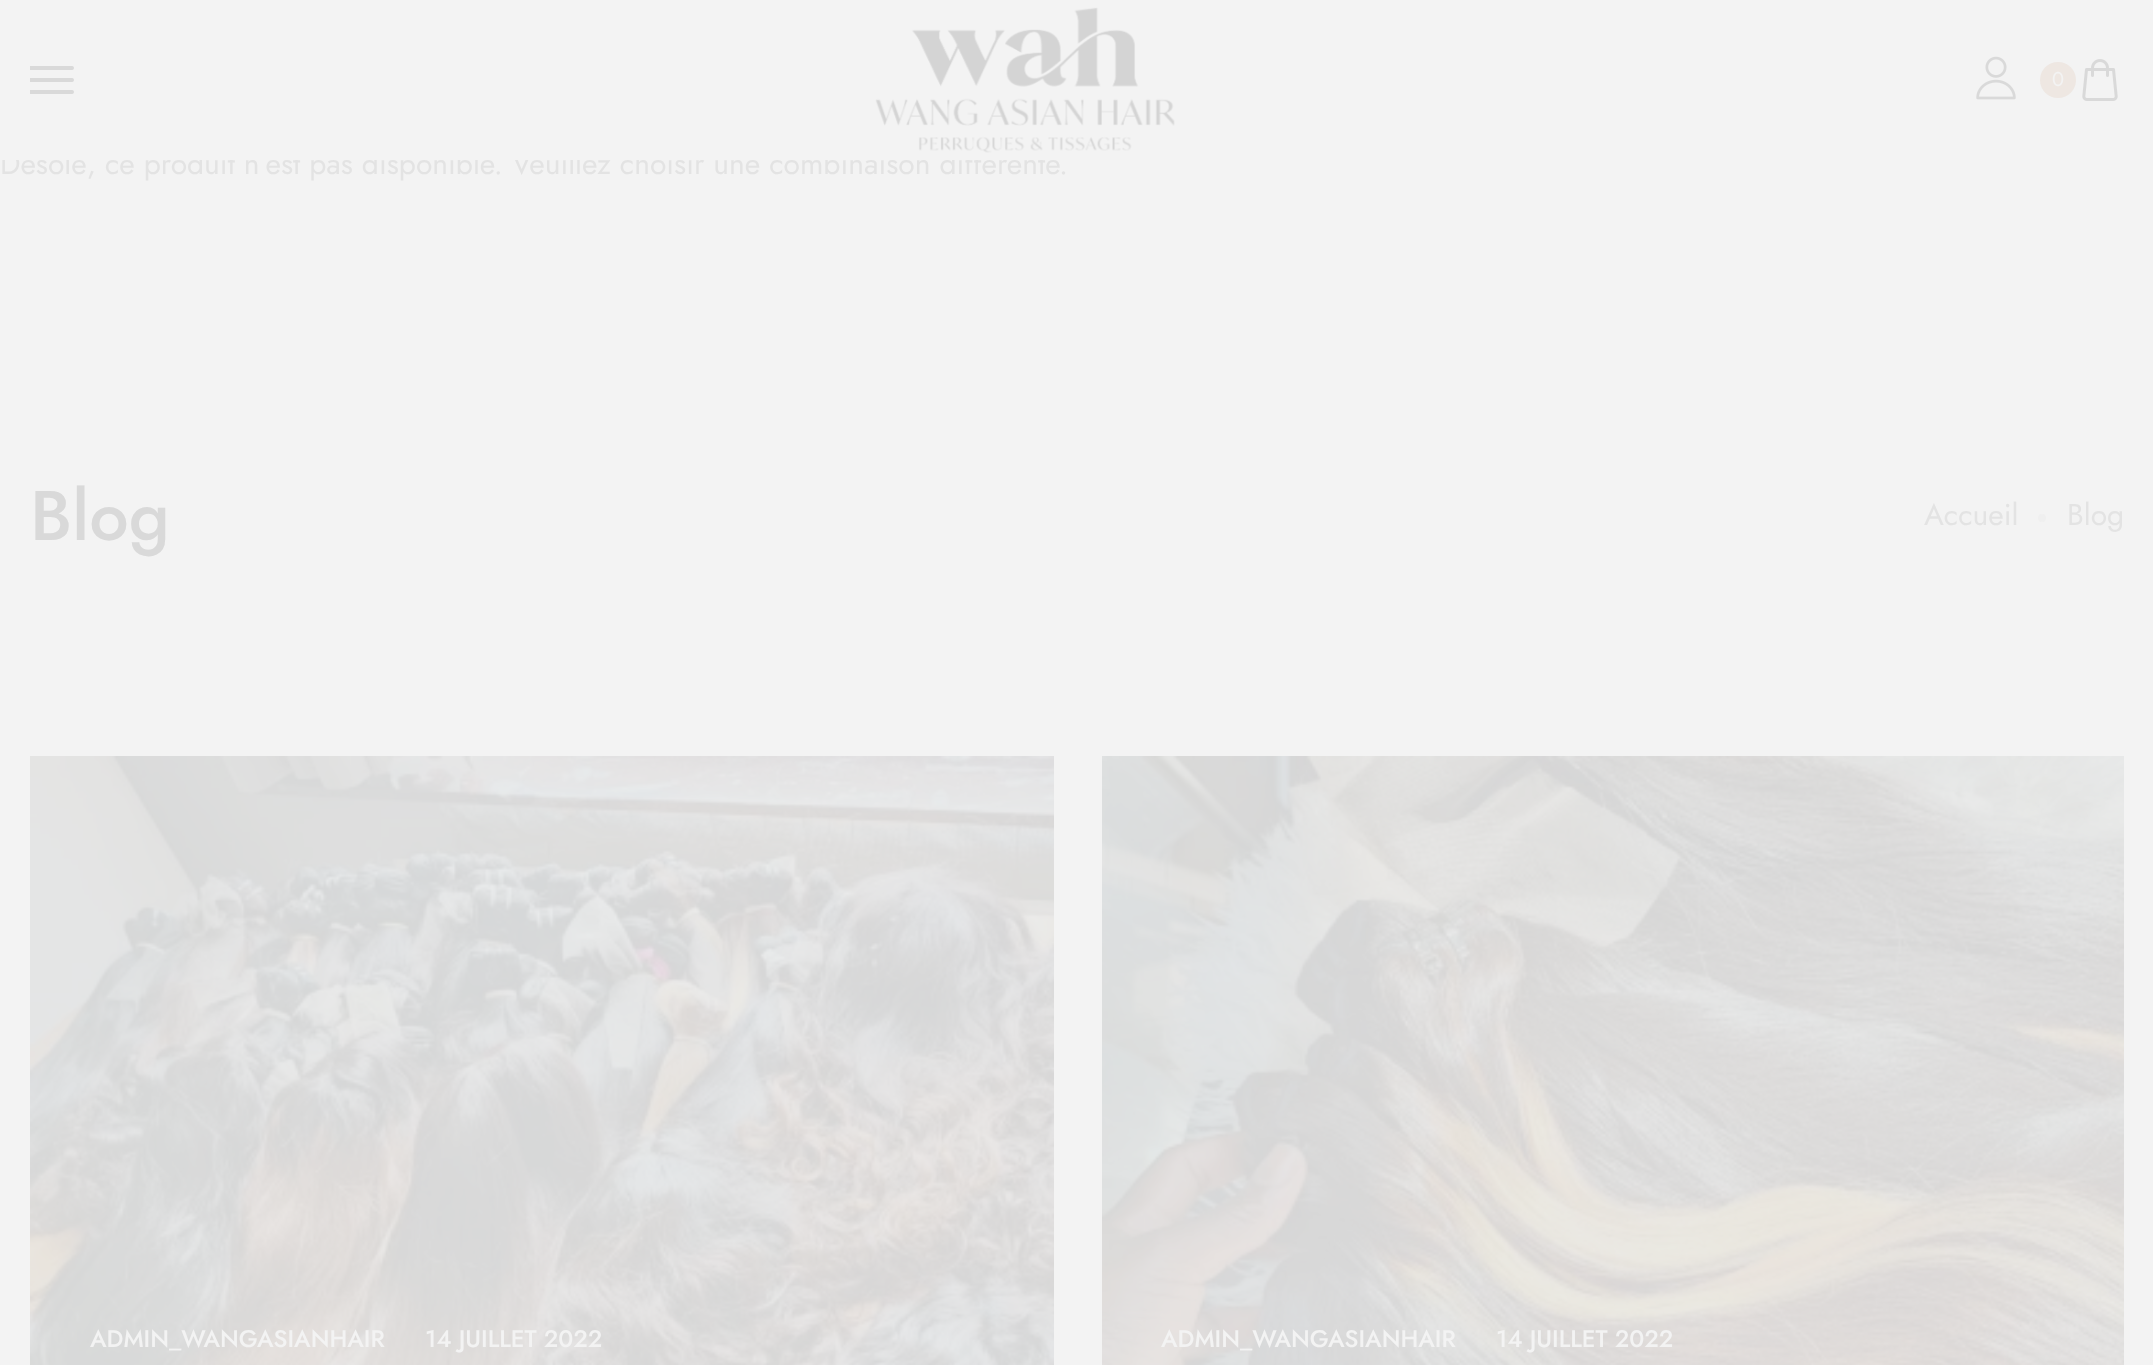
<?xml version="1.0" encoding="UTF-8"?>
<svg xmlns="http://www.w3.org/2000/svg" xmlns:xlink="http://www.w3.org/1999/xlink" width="2153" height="1365">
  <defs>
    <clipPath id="clip1"><rect x="30" y="56" width="48" height="48" /></clipPath>
  </defs>
  <rect width="100%" height="100%" fill="#f3f3f3" />
  <g clip-path="url(#clip1)">
    <path d="M 30 80 h 42 m -42 -12 h 42 m -42 24 h 42" fill="none" stroke="#d9d9d9" stroke-width="4" stroke-linecap="round" stroke-linejoin="round" />
  </g>
  <image x="1976" y="56" width="40" height="44" xlink:href="image2.png" />
  <circle cx="2058" cy="80" r="18" fill="#eee7e2" />
  <image x="2082" y="59" width="36" height="42" xlink:href="image3.png" />
  <circle cx="2042" cy="518" r="4" fill="#efefef" />
  <image x="30" y="756" width="1024" height="609" xlink:href="image4.png" />
  <image x="1102" y="756" width="1022" height="609" xlink:href="image5.png" />
  <text x="2052" y="86" style="font-family: Jost; font-size: 20px; fill: #f3f3f3">0</text>
  <text x="30" y="540" style="font-family: Jost; font-size: 70px; font-weight: 500; fill: #d9d9d9">Blog</text>
  <text x="1924" y="525" style="font-family: Jost; font-size: 30px; fill: #e3e3e3">Accueil</text>
  <text x="2067" y="525" style="font-family: Jost; font-size: 30px; fill: #e3e3e3">Blog</text>
  <text x="90" y="1347" style="font-family: Jost; font-size: 24px; font-weight: 500; fill: #f3f3f3">ADMIN_WANGASIANHAIR</text>
  <text x="425" y="1347" style="font-family: Jost; font-size: 24px; font-weight: 500; fill: #f3f3f3">14 JUILLET 2022</text>
  <text x="1161" y="1347" style="font-family: Jost; font-size: 24px; font-weight: 500; fill: #f3f3f3">ADMIN_WANGASIANHAIR</text>
  <text x="1496" y="1347" style="font-family: Jost; font-size: 24px; font-weight: 500; fill: #f3f3f3">14 JUILLET 2022</text>
  <text x="0" y="174" style="font-family: Jost; font-size: 30px; fill: #e3e3e3">Désolé, ce produit n’est pas disponible. Veuillez choisir une combinaison différente.</text>
  <rect x="2" y="150" width="1041" height="10" fill="#f3f3f3" />
  <image x="875" y="7" width="300" height="146" xlink:href="image1.png" />
</svg>
